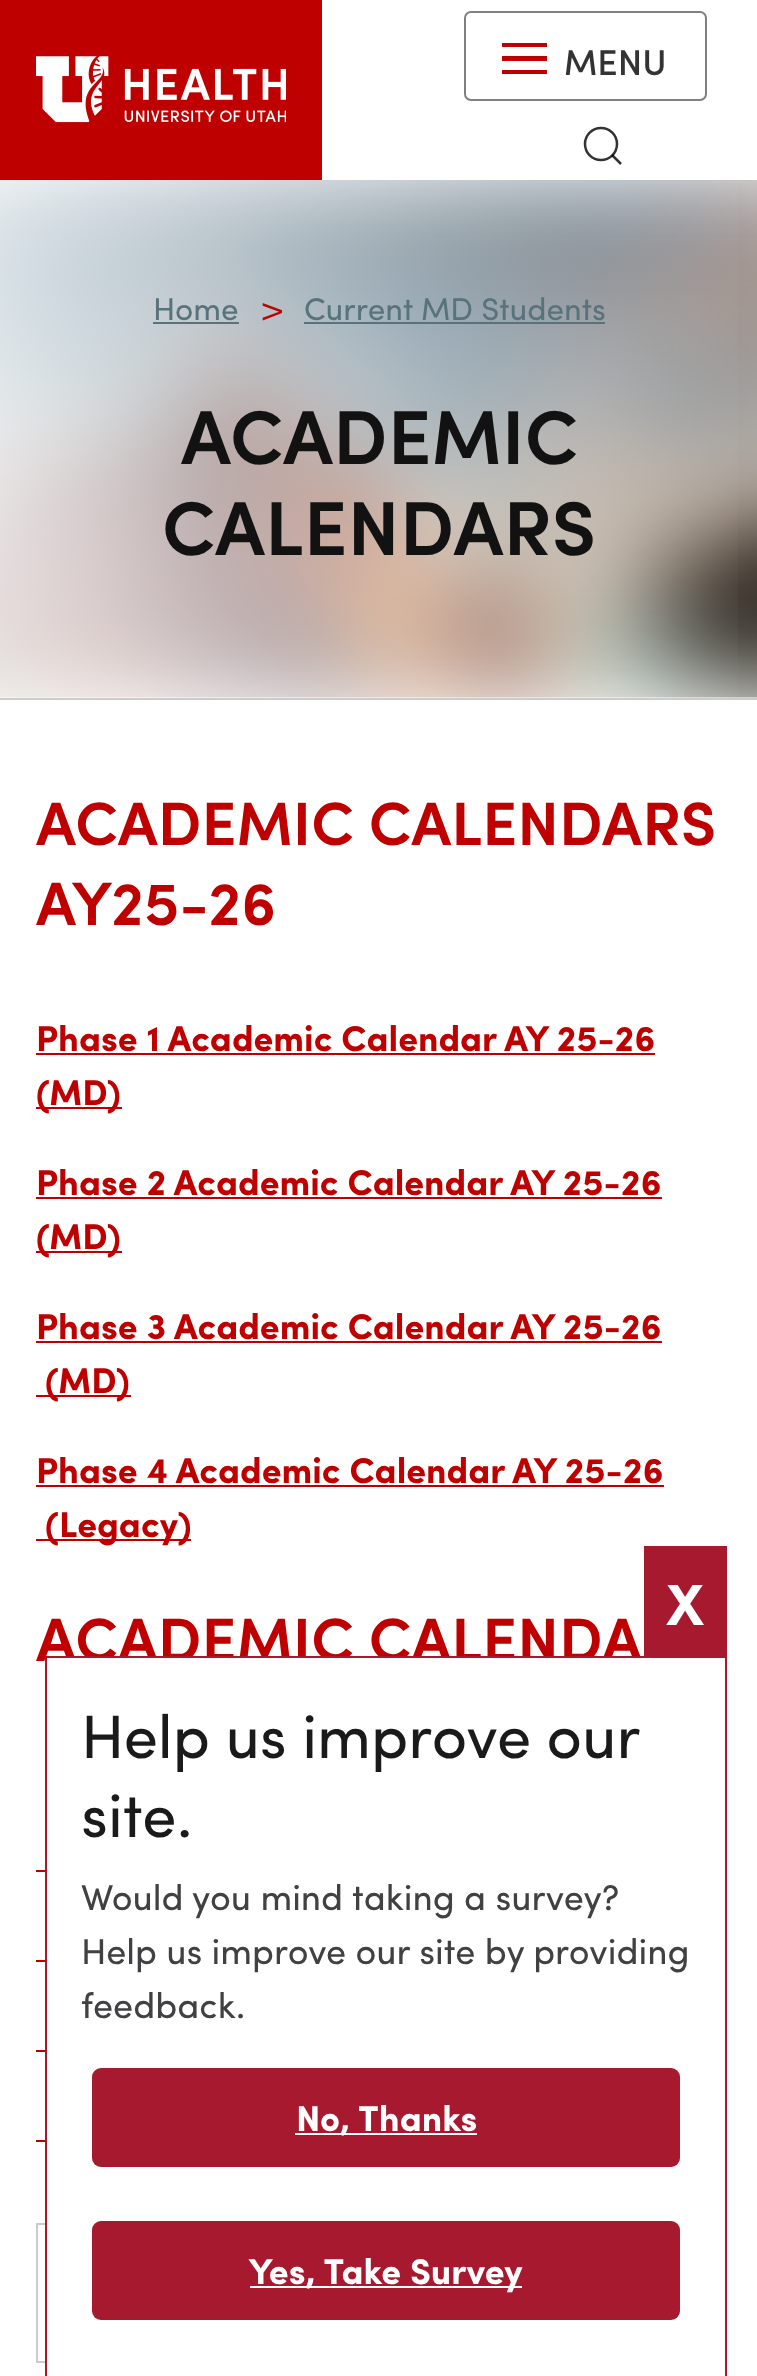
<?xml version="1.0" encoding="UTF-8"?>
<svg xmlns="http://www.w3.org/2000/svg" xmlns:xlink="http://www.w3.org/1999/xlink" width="757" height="2376">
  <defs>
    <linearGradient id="g1" gradientUnits="userSpaceOnUse" x1="0" y1="439" x2="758" y2="439"><stop offset="0" stop-color="#ffffff" stop-opacity="0.8" /><stop offset="1" stop-color="#ffffff" stop-opacity="0" /></linearGradient>
  </defs>
  <rect width="100%" height="100%" fill="#ffffff" />
  <rect width="322" height="180" fill="#be0000" />
  <image x="36" y="56" width="250" height="67" xlink:href="image1.png" />
  <rect x="465" y="12" width="241" height="88" rx="6" fill="none" stroke="#808080" stroke-width="2" />
  <rect x="502" y="43" width="45" height="4" fill="#be0000" />
  <rect x="502" y="56" width="45" height="5" fill="#be0000" />
  <rect x="502" y="70" width="45" height="4" fill="#be0000" />
  <circle cx="601" cy="144" r="16" fill="none" stroke="#333333" stroke-width="2.5" />
  <path d="M 612 155 l 9 9 z" fill="none" stroke="#000000" stroke-opacity="0.8" stroke-width="2.5" />
  <rect y="698" width="757" height="2" fill="#cccccc" />
  <image x="0" y="180" width="757" height="518" xlink:href="image2.png" />
  <rect y="180" width="738" height="518" fill="url(#g1)" />
  <rect x="153" y="322" width="86" height="2" fill="#59737d" />
  <rect x="304" y="322" width="301" height="2" fill="#59737d" />
  <rect x="36" y="1053" width="619" height="2" fill="#be0000" />
  <rect x="36" y="1107" width="86" height="2" fill="#be0000" />
  <rect x="36" y="1197" width="626" height="2" fill="#be0000" />
  <rect x="36" y="1251" width="86" height="2" fill="#be0000" />
  <rect x="36" y="1341" width="626" height="2" fill="#be0000" />
  <rect x="36" y="1395" width="95" height="2" fill="#be0000" />
  <rect x="36" y="1485" width="628" height="2" fill="#be0000" />
  <rect x="36" y="1539" width="155" height="2" fill="#be0000" />
  <rect x="36" y="1870" width="9" height="2" fill="#be0000" />
  <rect x="36" y="1960" width="9" height="2" fill="#be0000" />
  <rect x="36" y="2050" width="9" height="2" fill="#be0000" />
  <rect x="36" y="2140" width="9" height="2" fill="#be0000" />
  <rect x="37" y="2224" width="684" height="138" fill="none" stroke="#cccccc" stroke-width="2" />
  <rect x="644" y="1546" width="83" height="110" fill="#a6192e" />
  <text x="564" y="75" style="font-family: Sofia; font-size: 36px; font-weight: 500; fill: #333333">MENU</text>
  <text x="153" y="320" style="font-family: Sofia; font-size: 31.5px; fill: #59737d">Home</text>
  <text x="260" y="322" style="font-family: Sofia; font-size: 38px; font-weight: 300; letter-spacing: -12px; fill: #be0000">&gt;</text>
  <text x="304" y="320" style="font-family: Sofia; font-size: 31.5px; fill: #59737d">Current MD Students</text>
  <text x="181" y="464" style="font-family: Sofia; font-size: 76.5px; font-weight: 600; fill: #131212">ACADEMIC</text>
  <text x="162" y="555" style="font-family: Sofia; font-size: 76.5px; font-weight: 600; fill: #131212">CALENDARS</text>
  <text x="36" y="845" style="font-family: Sofia; font-size: 61.25px; font-weight: 600; fill: #be0000">ACADEMIC CALENDARS</text>
  <text x="36" y="925" style="font-family: Sofia; font-size: 61.25px; font-weight: 600; fill: #be0000">AY25-26</text>
  <text x="36" y="1051" style="font-family: Sofia; font-size: 36px; font-weight: bold; fill: #be0000">Phase 1 Academic Calendar AY 25-26</text>
  <text x="36" y="1105" style="font-family: Sofia; font-size: 36px; font-weight: bold; fill: #be0000">(MD)</text>
  <text x="36" y="1195" style="font-family: Sofia; font-size: 36px; font-weight: bold; fill: #be0000">Phase 2 Academic Calendar AY 25-26</text>
  <text x="36" y="1249" style="font-family: Sofia; font-size: 36px; font-weight: bold; fill: #be0000">(MD)</text>
  <text x="36" y="1339" style="font-family: Sofia; font-size: 36px; font-weight: bold; fill: #be0000">Phase 3 Academic Calendar AY 25-26</text>
  <text x="45" y="1393" style="font-family: Sofia; font-size: 36px; font-weight: bold; fill: #be0000">(MD)</text>
  <text x="36" y="1483" style="font-family: Sofia; font-size: 36px; font-weight: bold; fill: #be0000">Phase 4 Academic Calendar AY 25-26</text>
  <text x="45" y="1537" style="font-family: Sofia; font-size: 36px; font-weight: bold; fill: #be0000">(Legacy)</text>
  <text x="36" y="1661" style="font-family: Sofia; font-size: 61.25px; font-weight: 600; fill: #be0000">ACADEMIC CALENDA</text>
  <rect x="47" y="1658" width="675" height="705" fill="#ffffff" />
  <rect x="45" y="1656" width="682" height="2" fill="#a6192e" />
  <rect x="725" y="1656" width="2" height="720" fill="#a6192e" />
  <rect x="45" y="1656" width="2" height="720" fill="#a6192e" />
  <text x="666" y="1625" style="font-family: Sofia; font-size: 58px; font-weight: bold; fill: #ffffff">X</text>
  <text x="81" y="1758" word-spacing="-0.5" style="font-family: Sofia; font-size: 61.25px; fill: #1a1a1a">Help us improve our</text>
  <text x="81" y="1837" style="font-family: Sofia; font-size: 61.25px; fill: #1a1a1a">site.</text>
  <text x="81" y="1910" style="font-family: Sofia; font-size: 36px; fill: #414042">Would you mind taking a survey?</text>
  <text x="81" y="1964" style="font-family: Sofia; font-size: 36px; fill: #414042">Help us improve our site by providing</text>
  <text x="81" y="2018" style="font-family: Sofia; font-size: 36px; fill: #414042">feedback.</text>
  <rect x="92" y="2068" width="588" height="99" rx="9" fill="#a6192e" />
  <rect x="295" y="2133" width="182" height="2" fill="#ffffff" />
  <text x="296" y="2131" style="font-family: Sofia; font-size: 36px; font-weight: bold; fill: #ffffff">No, Thanks</text>
  <rect x="92" y="2221" width="588" height="99" rx="9" fill="#a6192e" />
  <rect x="250" y="2286" width="272" height="2" fill="#ffffff" />
  <text x="249" y="2284" style="font-family: Sofia; font-size: 36px; font-weight: bold; fill: #ffffff">Yes, Take Survey</text>
</svg>
